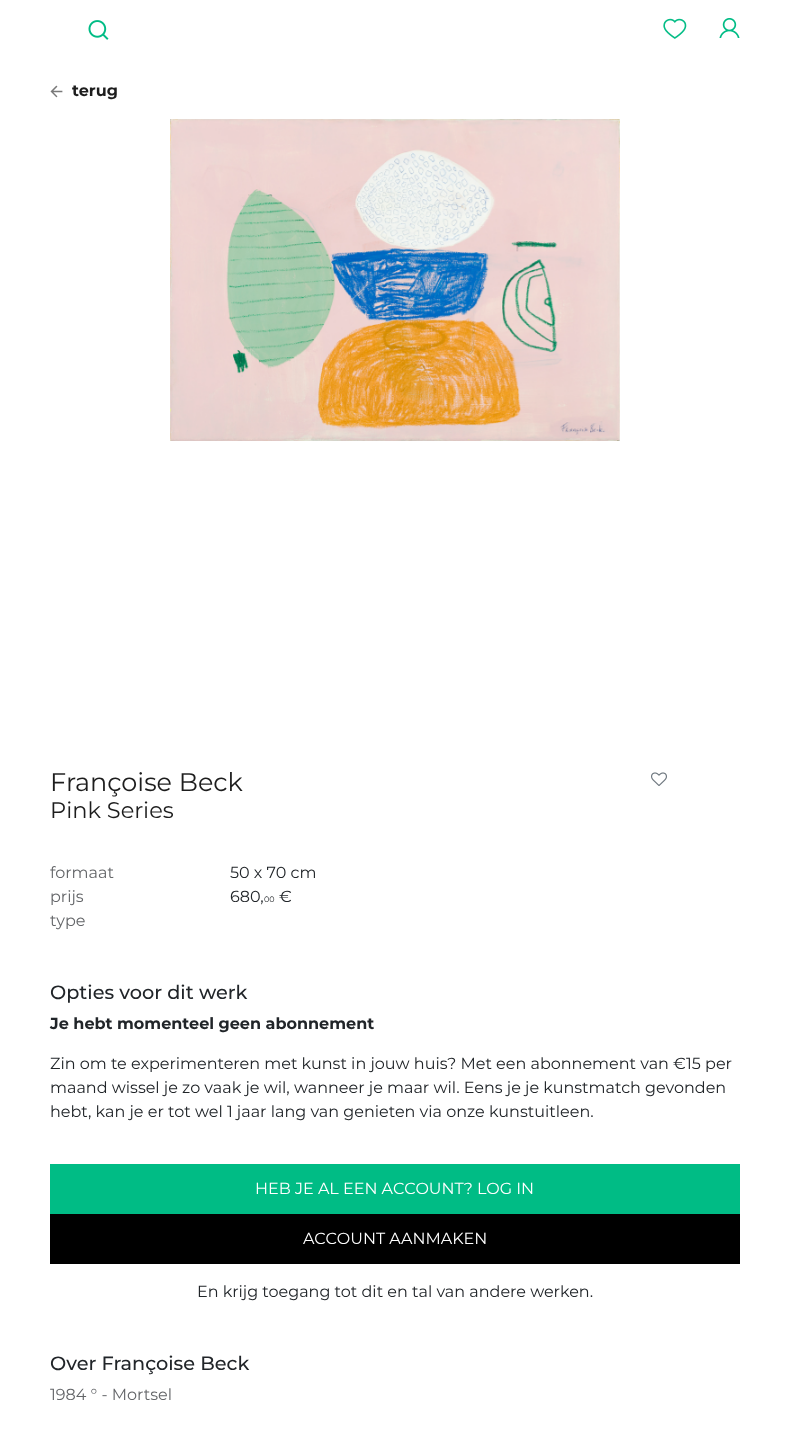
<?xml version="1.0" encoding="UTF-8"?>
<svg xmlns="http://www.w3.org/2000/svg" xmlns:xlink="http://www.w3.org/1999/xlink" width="790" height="1451">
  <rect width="100%" height="100%" fill="#ffffff" />
  <image x="88" y="20" width="21" height="20" xlink:href="image1.png" />
  <image x="663" y="18" width="24" height="21" xlink:href="image2.png" />
  <image x="719" y="18" width="21" height="20" xlink:href="image3.png" />
  <image x="50" y="85" width="13" height="13" xlink:href="image4.png" />
  <image x="170" y="119" width="450" height="322" xlink:href="image5.png" />
  <image x="651" y="772" width="16" height="14" xlink:href="image6.png" />
  <rect x="50" y="1164" width="690" height="50" fill="#00bc85" />
  <rect x="50" y="1214" width="690" height="50" fill="#000000" />
  <text x="72" y="96" style="font-family: Montserrat; font-size: 16px; font-weight: bold; fill: #1d1d1d">terug</text>
  <text x="50" y="791" style="font-family: Montserrat; font-size: 25.5px; fill: #1d1d1d">Françoise Beck</text>
  <text x="50" y="818" style="font-family: Montserrat; font-size: 22.5px; fill: #1d1d1d">Pink Series</text>
  <text x="50" y="878" style="font-family: Montserrat; font-size: 16px; fill: #646669">formaat</text>
  <text x="230" y="878" style="font-family: Montserrat; font-size: 16px; fill: #212529">50 x 70 cm</text>
  <text x="50" y="902" style="font-family: Montserrat; font-size: 16px; fill: #646669">prijs</text>
  <text x="230" y="902" style="font-family: Montserrat; font-size: 16px; fill: #212529">680,</text>
  <text x="264" y="902" style="font-family: Montserrat; font-size: 8px; fill: #212529">00</text>
  <text x="279" y="902" style="font-family: Montserrat; font-size: 16px; fill: #212529">€</text>
  <text x="50" y="926" style="font-family: Montserrat; font-size: 16px; fill: #646669">type</text>
  <text x="50" y="999" style="font-family: Montserrat; font-size: 19.25px; font-weight: 500; fill: #212529">Opties voor dit werk</text>
  <text x="50" y="1029" style="font-family: Montserrat; font-size: 16px; font-weight: bold; fill: #212529">Je hebt momenteel geen abonnement</text>
  <text x="50" y="1069" style="font-family: Montserrat; font-size: 16px; fill: #212529">Zin om te experimenteren met kunst in jouw huis? Met een abonnement van €15 per</text>
  <text x="50" y="1093" style="font-family: Montserrat; font-size: 16px; fill: #212529">maand wissel je zo vaak je wil, wanneer je maar wil. Eens je je kunstmatch gevonden</text>
  <text x="50" y="1117" style="font-family: Montserrat; font-size: 16px; fill: #212529">hebt, kan je er tot wel 1 jaar lang van genieten via onze kunstuitleen.</text>
  <text x="255" y="1194" style="font-family: Montserrat; font-size: 16px; fill: #ffffff">HEB JE AL EEN ACCOUNT? LOG IN</text>
  <text x="303" y="1244" style="font-family: Montserrat; font-size: 16px; fill: #ffffff">ACCOUNT AANMAKEN</text>
  <text x="197" y="1297" style="font-family: Montserrat; font-size: 16px; fill: #212529">En krijg toegang tot dit en tal van andere werken.</text>
  <text x="50" y="1370" style="font-family: Montserrat; font-size: 19.25px; font-weight: 500; fill: #212529">Over Françoise Beck</text>
  <text x="50" y="1400" style="font-family: Montserrat; font-size: 16px; fill: #646669">1984 ° - Mortsel</text>
</svg>
